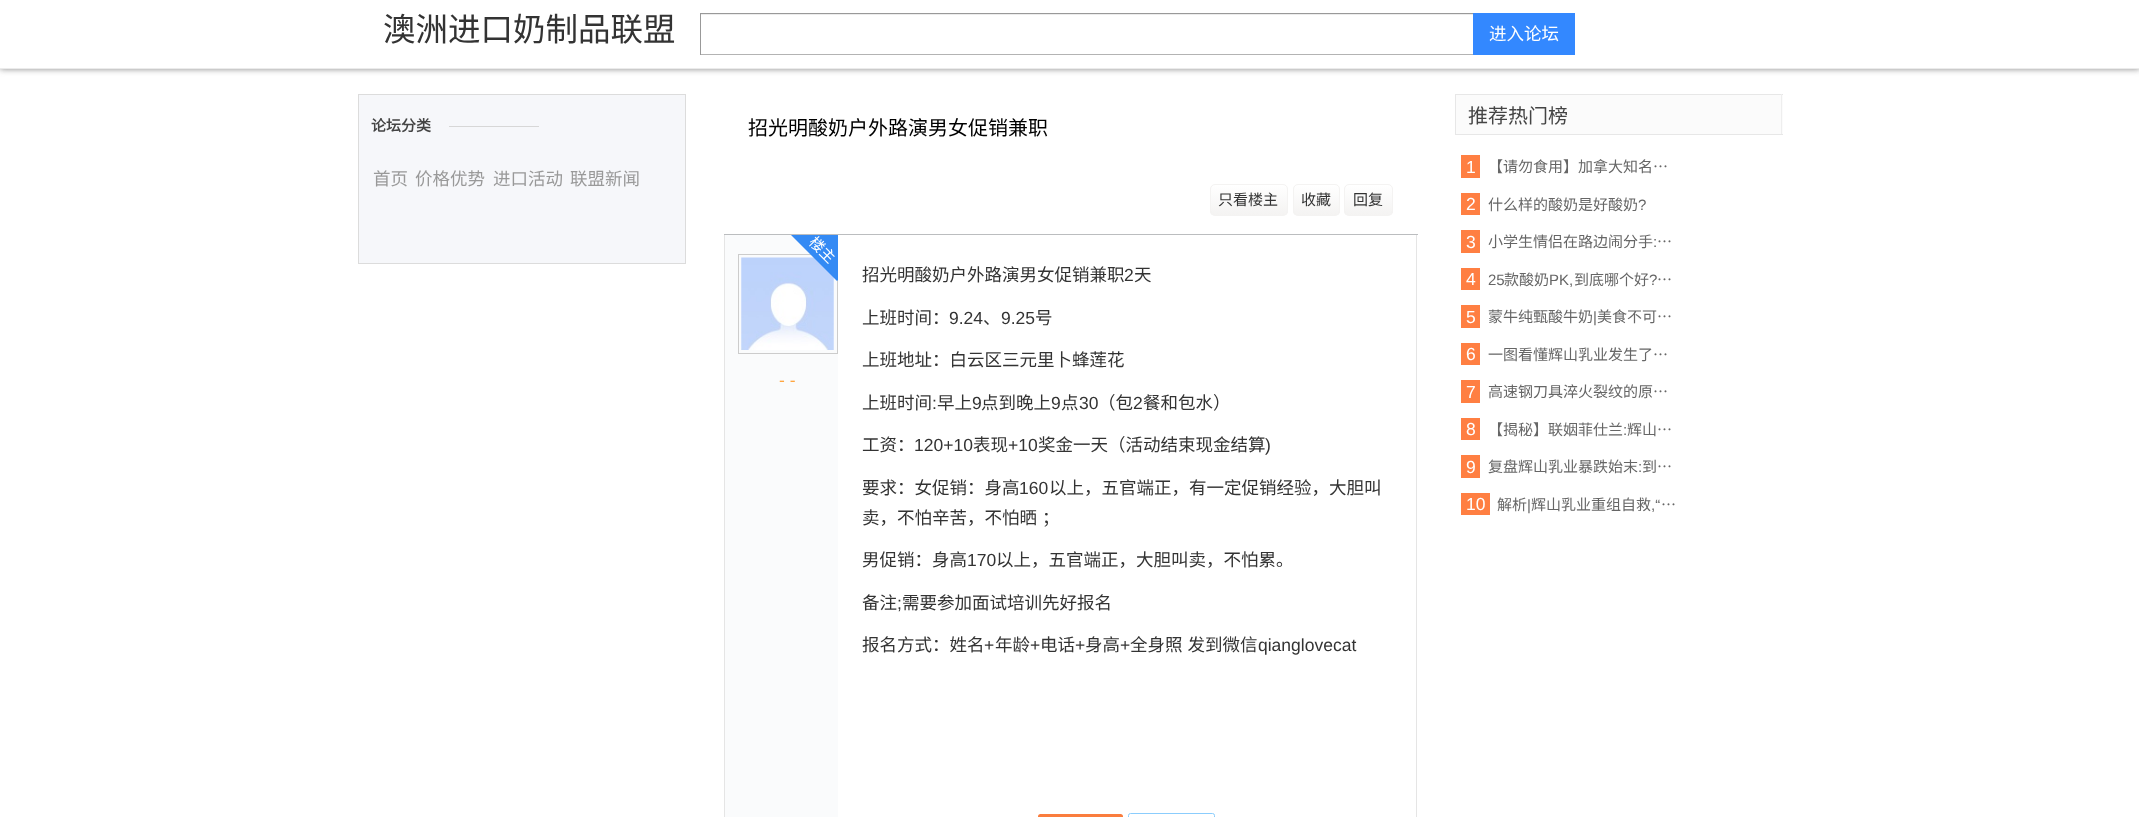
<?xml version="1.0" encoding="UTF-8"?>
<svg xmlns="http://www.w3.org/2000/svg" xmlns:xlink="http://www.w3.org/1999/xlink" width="2139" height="817">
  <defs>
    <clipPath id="clip1"><rect x="1210" y="184" width="78" height="32" rx="5" /></clipPath>
    <linearGradient id="g1" gradientUnits="userSpaceOnUse" x1="1249" y1="185" x2="1249" y2="215"><stop offset="0" stop-color="#ffffff" /><stop offset="1" stop-color="#f4f3f2" /></linearGradient>
    <clipPath id="clip2"><rect x="1293" y="184" width="47" height="32" rx="5" /></clipPath>
    <linearGradient id="g2" gradientUnits="userSpaceOnUse" x1="1316" y1="185" x2="1316" y2="215"><stop offset="0" stop-color="#ffffff" /><stop offset="1" stop-color="#f4f3f2" /></linearGradient>
    <clipPath id="clip3"><rect x="1344" y="184" width="49" height="32" rx="5" /></clipPath>
    <linearGradient id="g3" gradientUnits="userSpaceOnUse" x1="1368" y1="185" x2="1368" y2="215"><stop offset="0" stop-color="#ffffff" /><stop offset="1" stop-color="#f4f3f2" /></linearGradient>
    <clipPath id="clip4"><rect x="738" y="235" width="100" height="178" /></clipPath>
  </defs>
  <rect width="100%" height="100%" fill="#ffffff" />
  <rect width="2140" height="69" fill="#888888" filter="blur(3px)" />
  <rect width="2139" height="68" fill="#ffffff" />
  <rect y="68" width="2139" height="1" fill="#ebebeb" />
  <rect x="701" y="14" width="772" height="1" fill="#ececec" />
  <rect x="700" y="13" width="774" height="1" fill="#999999" />
  <rect x="700" y="54" width="774" height="1" fill="#b3b3b3" />
  <rect x="700" y="13" width="1" height="42" fill="#999999" />
  <rect x="1473" y="13" width="102" height="42" fill="#3388ff" />
  <rect x="358.5" y="94.5" width="327" height="169" fill="#f6f7fa" stroke="#dcdcdc" />
  <rect x="449" y="126" width="90" height="1" fill="#d7d7d7" />
  <rect x="724" y="234" width="694" height="1" fill="#bbbdbf" />
  <g clip-path="url(#clip1)">
    <rect x="1210" y="185" width="78" height="30" fill="url(#g1)" />
  </g>
  <rect x="1210.5" y="184.5" width="77" height="31" rx="4.5" fill="none" stroke="#f4f3f2" />
  <g clip-path="url(#clip2)">
    <rect x="1293" y="185" width="47" height="30" fill="url(#g2)" />
  </g>
  <rect x="1293.5" y="184.5" width="46" height="31" rx="4.5" fill="none" stroke="#f4f3f2" />
  <g clip-path="url(#clip3)">
    <rect x="1344" y="185" width="49" height="30" fill="url(#g3)" />
  </g>
  <rect x="1344.5" y="184.5" width="48" height="31" rx="4.5" fill="none" stroke="#f4f3f2" />
  <rect x="725" y="235" width="113" height="582" fill="#fafbfc" />
  <rect x="1416" y="235" width="1" height="582" fill="#e5e5e5" />
  <rect x="724" y="235" width="1" height="582" fill="#e5e5e5" />
  <rect x="738.5" y="254.5" width="99" height="99" fill="none" stroke="#cccccc" />
  <image x="741" y="257" width="93" height="93" xlink:href="image1.png" />
  <g clip-path="url(#clip4)">
    <path d="M 837 189 l 46 46 l -46 46 l -46 -46 z" fill="#348af4" />
  </g>
  <rect x="1038" y="814" width="85" height="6" rx="2.5" fill="#fa7d3e" />
  <rect x="1128.5" y="813.5" width="86" height="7" rx="2" fill="none" stroke="#8bcdfd" />
  <rect x="1456" y="95" width="327" height="39" fill="#fbfbfb" />
  <rect x="1455" y="94" width="328" height="1" fill="#e7e7e7" />
  <rect x="1781" y="94" width="1" height="41" fill="#eeeeee" />
  <rect x="1455" y="134" width="328" height="1" fill="#e7e7e7" />
  <rect x="1455" y="94" width="1" height="41" fill="#e7e7e7" />
  <rect x="1461" y="155" width="19" height="23" fill="#ff7f42" />
  <rect x="1461" y="193" width="19" height="22" fill="#ff7f42" />
  <rect x="1461" y="230" width="19" height="23" fill="#ff7f42" />
  <rect x="1461" y="268" width="19" height="22" fill="#ff7f42" />
  <rect x="1461" y="305" width="19" height="23" fill="#ff7f42" />
  <rect x="1461" y="343" width="19" height="22" fill="#ff7f42" />
  <rect x="1461" y="380" width="19" height="23" fill="#ff7f42" />
  <rect x="1461" y="418" width="19" height="22" fill="#ff7f42" />
  <rect x="1461" y="455" width="19" height="23" fill="#ff7f42" />
  <rect x="1461" y="493" width="29" height="22" fill="#ff7f42" />
  <text x="383" y="41" style="font-family: Noto Sans CJK SC; font-size: 32.5px; fill: #333333">澳洲进口奶制品联盟</text>
  <text x="1489" y="40" style="font-family: Noto Sans CJK SC; font-size: 17.5px; fill: #ffffff">进入论坛</text>
  <text x="371" y="131" style="font-family: Noto Sans CJK SC; font-size: 15px; font-weight: bold; fill: #444444">论坛分类</text>
  <text x="373" y="185" style="font-family: Noto Sans CJK SC; font-size: 17.5px; fill: #999999">首页</text>
  <text x="415" y="185" style="font-family: Noto Sans CJK SC; font-size: 17.5px; fill: #999999">价格优势</text>
  <text x="493" y="185" style="font-family: Noto Sans CJK SC; font-size: 17.5px; fill: #999999">进口活动</text>
  <text x="570" y="185" style="font-family: Noto Sans CJK SC; font-size: 17.5px; fill: #999999">联盟新闻</text>
  <text x="748" y="135" style="font-family: Noto Sans CJK SC; font-size: 20px; fill: #000000">招光明酸奶户外路演男女促销兼职</text>
  <text x="1218" y="205" style="font-family: Noto Sans CJK SC; font-size: 15px; fill: #333333">只看楼主</text>
  <text x="1301" y="205" style="font-family: Noto Sans CJK SC; font-size: 15px; fill: #333333">收藏</text>
  <text x="1353" y="205" style="font-family: Noto Sans CJK SC; font-size: 15px; fill: #333333">回复</text>
  <text x="808" y="243" transform="rotate(45 808 243)" style="font-family: Noto Sans CJK SC; font-size: 15px; fill: #ffffff">楼主</text>
  <text x="779" y="386" style="font-family: Liberation Sans; font-size: 17.5px; fill: #ffa640">- -</text>
  <text x="862" y="281" style="font-family: Noto Sans CJK SC; font-size: 17.5px; fill: #333333">招光明酸奶户外路演男女促销兼职</text>
  <text x="1124" y="281" style="font-family: Liberation Sans; font-size: 17.5px; fill: #333333">2</text>
  <text x="1134" y="281" style="font-family: Noto Sans CJK SC; font-size: 17.5px; fill: #333333">天</text>
  <text x="862" y="324" style="font-family: Noto Sans CJK SC; font-size: 17.5px; fill: #333333">上班时间：</text>
  <text x="949" y="324" style="font-family: Liberation Sans; font-size: 17.5px; fill: #333333">9.24</text>
  <text x="983" y="324" style="font-family: Noto Sans CJK SC; font-size: 17.5px; fill: #333333">、</text>
  <text x="1001" y="324" style="font-family: Liberation Sans; font-size: 17.5px; fill: #333333">9.25</text>
  <text x="1035" y="324" style="font-family: Noto Sans CJK SC; font-size: 17.5px; fill: #333333">号</text>
  <text x="862" y="366" style="font-family: Noto Sans CJK SC; font-size: 17.5px; fill: #333333">上班地址：白云区三元里卜蜂莲花</text>
  <text x="862" y="409" style="font-family: Noto Sans CJK SC; font-size: 17.5px; fill: #333333">上班时间</text>
  <text x="932" y="409" style="font-family: Liberation Sans; font-size: 17.5px; fill: #333333">:</text>
  <text x="937" y="409" style="font-family: Noto Sans CJK SC; font-size: 17.5px; fill: #333333">早上</text>
  <text x="972" y="409" style="font-family: Liberation Sans; font-size: 17.5px; fill: #333333">9</text>
  <text x="981" y="409" style="font-family: Noto Sans CJK SC; font-size: 17.5px; fill: #333333">点到晚上</text>
  <text x="1051" y="409" style="font-family: Liberation Sans; font-size: 17.5px; fill: #333333">9</text>
  <text x="1061" y="409" style="font-family: Noto Sans CJK SC; font-size: 17.5px; fill: #333333">点</text>
  <text x="1079" y="409" style="font-family: Liberation Sans; font-size: 17.5px; fill: #333333">30</text>
  <text x="1098" y="409" style="font-family: Noto Sans CJK SC; font-size: 17.5px; fill: #333333">（包</text>
  <text x="1133" y="409" style="font-family: Liberation Sans; font-size: 17.5px; fill: #333333">2</text>
  <text x="1143" y="409" style="font-family: Noto Sans CJK SC; font-size: 17.5px; fill: #333333">餐和包水）</text>
  <text x="862" y="451" style="font-family: Noto Sans CJK SC; font-size: 17.5px; fill: #333333">工资：</text>
  <text x="914" y="451" style="font-family: Liberation Sans; font-size: 17.5px; fill: #333333">120+10</text>
  <text x="973" y="451" style="font-family: Noto Sans CJK SC; font-size: 17.5px; fill: #333333">表现</text>
  <text x="1008" y="451" style="font-family: Liberation Sans; font-size: 17.5px; fill: #333333">+10</text>
  <text x="1038" y="451" style="font-family: Noto Sans CJK SC; font-size: 17.5px; fill: #333333">奖金一天（活动结束现金结算</text>
  <text x="1265" y="451" style="font-family: Liberation Sans; font-size: 17.5px; fill: #333333">)</text>
  <text x="862" y="494" style="font-family: Noto Sans CJK SC; font-size: 17.5px; fill: #333333">要求：女促销：身高</text>
  <text x="1019" y="494" style="font-family: Liberation Sans; font-size: 17.5px; fill: #333333">160</text>
  <text x="1049" y="494" style="font-family: Noto Sans CJK SC; font-size: 17.5px; fill: #333333">以上，五官端正，有一定促销经验，大胆叫</text>
  <text x="862" y="524" style="font-family: Noto Sans CJK SC; font-size: 17.5px; fill: #333333">卖，不怕辛苦，不怕晒</text>
  <text x="1042" y="524" style="font-family: Noto Sans CJK SC; font-size: 17.5px; fill: #333333">；</text>
  <text x="862" y="566" style="font-family: Noto Sans CJK SC; font-size: 17.5px; fill: #333333">男促销：身高</text>
  <text x="967" y="566" style="font-family: Liberation Sans; font-size: 17.5px; fill: #333333">170</text>
  <text x="996" y="566" style="font-family: Noto Sans CJK SC; font-size: 17.5px; fill: #333333">以上，五官端正，大胆叫卖，不怕累。</text>
  <text x="862" y="609" style="font-family: Noto Sans CJK SC; font-size: 17.5px; fill: #333333">备注</text>
  <text x="897" y="609" style="font-family: Liberation Sans; font-size: 17.5px; fill: #333333">;</text>
  <text x="902" y="609" style="font-family: Noto Sans CJK SC; font-size: 17.5px; fill: #333333">需要参加面试培训先好报名</text>
  <text x="862" y="651" style="font-family: Noto Sans CJK SC; font-size: 17.5px; fill: #333333">报名方式：姓名</text>
  <text x="984" y="651" style="font-family: Liberation Sans; font-size: 17.5px; fill: #333333">+</text>
  <text x="995" y="651" style="font-family: Noto Sans CJK SC; font-size: 17.5px; fill: #333333">年龄</text>
  <text x="1030" y="651" style="font-family: Liberation Sans; font-size: 17.5px; fill: #333333">+</text>
  <text x="1040" y="651" style="font-family: Noto Sans CJK SC; font-size: 17.5px; fill: #333333">电话</text>
  <text x="1075" y="651" style="font-family: Liberation Sans; font-size: 17.5px; fill: #333333">+</text>
  <text x="1085" y="651" style="font-family: Noto Sans CJK SC; font-size: 17.5px; fill: #333333">身高</text>
  <text x="1120" y="651" style="font-family: Liberation Sans; font-size: 17.5px; fill: #333333">+</text>
  <text x="1130" y="651" word-spacing="1" style="font-family: Noto Sans CJK SC; font-size: 17.5px; fill: #333333">全身照 发到微信</text>
  <text x="1258" y="651" style="font-family: Liberation Sans; font-size: 17.5px; fill: #333333">qianglovecat</text>
  <text x="1468" y="123" style="font-family: Noto Sans CJK SC; font-size: 20px; fill: #444444">推荐热门榜</text>
  <text x="1466" y="173" style="font-family: Liberation Sans; font-size: 17.5px; fill: #ffffff">1</text>
  <text x="1488" y="172" style="font-family: Noto Sans CJK SC; font-size: 15px; fill: #666666">【请勿食用】加拿大知名…</text>
  <text x="1466" y="210" style="font-family: Liberation Sans; font-size: 17.5px; fill: #ffffff">2</text>
  <text x="1488" y="210" style="font-family: Noto Sans CJK SC; font-size: 15px; fill: #666666">什么样的酸奶是好酸奶</text>
  <text x="1638" y="210" style="font-family: Liberation Sans; font-size: 15px; fill: #666666">?</text>
  <text x="1466" y="248" style="font-family: Liberation Sans; font-size: 17.5px; fill: #ffffff">3</text>
  <text x="1488" y="247" style="font-family: Noto Sans CJK SC; font-size: 15px; fill: #666666">小学生情侣在路边闹分手</text>
  <text x="1653" y="247" style="font-family: Liberation Sans; font-size: 15px; fill: #666666">:</text>
  <text x="1657" y="247" style="font-family: Noto Sans CJK SC; font-size: 15px; fill: #666666">…</text>
  <text x="1466" y="285" style="font-family: Liberation Sans; font-size: 17.5px; fill: #ffffff">4</text>
  <text x="1488" y="285" style="font-family: Liberation Sans; font-size: 15px; fill: #666666">25</text>
  <text x="1504" y="285" style="font-family: Noto Sans CJK SC; font-size: 15px; fill: #666666">款酸奶</text>
  <text x="1549" y="285" style="font-family: Liberation Sans; font-size: 15px; fill: #666666">PK,</text>
  <text x="1574" y="285" style="font-family: Noto Sans CJK SC; font-size: 15px; fill: #666666">到底哪个好</text>
  <text x="1649" y="285" style="font-family: Liberation Sans; font-size: 15px; fill: #666666">?</text>
  <text x="1657" y="285" style="font-family: Noto Sans CJK SC; font-size: 15px; fill: #666666">…</text>
  <text x="1466" y="323" style="font-family: Liberation Sans; font-size: 17.5px; fill: #ffffff">5</text>
  <text x="1488" y="322" style="font-family: Noto Sans CJK SC; font-size: 15px; fill: #666666">蒙牛纯甄酸牛奶</text>
  <text x="1593" y="322" style="font-family: Liberation Sans; font-size: 15px; fill: #666666">|</text>
  <text x="1597" y="322" style="font-family: Noto Sans CJK SC; font-size: 15px; fill: #666666">美食不可…</text>
  <text x="1466" y="360" style="font-family: Liberation Sans; font-size: 17.5px; fill: #ffffff">6</text>
  <text x="1488" y="360" style="font-family: Noto Sans CJK SC; font-size: 15px; fill: #666666">一图看懂辉山乳业发生了…</text>
  <text x="1466" y="398" style="font-family: Liberation Sans; font-size: 17.5px; fill: #ffffff">7</text>
  <text x="1488" y="397" style="font-family: Noto Sans CJK SC; font-size: 15px; fill: #666666">高速钢刀具淬火裂纹的原…</text>
  <text x="1466" y="435" style="font-family: Liberation Sans; font-size: 17.5px; fill: #ffffff">8</text>
  <text x="1488" y="435" style="font-family: Noto Sans CJK SC; font-size: 15px; fill: #666666">【揭秘】联姻菲仕兰</text>
  <text x="1623" y="435" style="font-family: Liberation Sans; font-size: 15px; fill: #666666">:</text>
  <text x="1627" y="435" style="font-family: Noto Sans CJK SC; font-size: 15px; fill: #666666">辉山…</text>
  <text x="1466" y="473" style="font-family: Liberation Sans; font-size: 17.5px; fill: #ffffff">9</text>
  <text x="1488" y="472" style="font-family: Noto Sans CJK SC; font-size: 15px; fill: #666666">复盘辉山乳业暴跌始末</text>
  <text x="1638" y="472" style="font-family: Liberation Sans; font-size: 15px; fill: #666666">:</text>
  <text x="1642" y="472" style="font-family: Noto Sans CJK SC; font-size: 15px; fill: #666666">到…</text>
  <text x="1466" y="510" style="font-family: Liberation Sans; font-size: 17.5px; fill: #ffffff">10</text>
  <text x="1497" y="510" style="font-family: Noto Sans CJK SC; font-size: 15px; fill: #666666">解析</text>
  <text x="1527" y="510" style="font-family: Liberation Sans; font-size: 15px; fill: #666666">|</text>
  <text x="1531" y="510" style="font-family: Noto Sans CJK SC; font-size: 15px; fill: #666666">辉山乳业重组自救</text>
  <text x="1651" y="510" style="font-family: Liberation Sans; font-size: 15px; fill: #666666">,“</text>
  <text x="1661" y="510" style="font-family: Noto Sans CJK SC; font-size: 15px; fill: #666666">…</text>
</svg>
